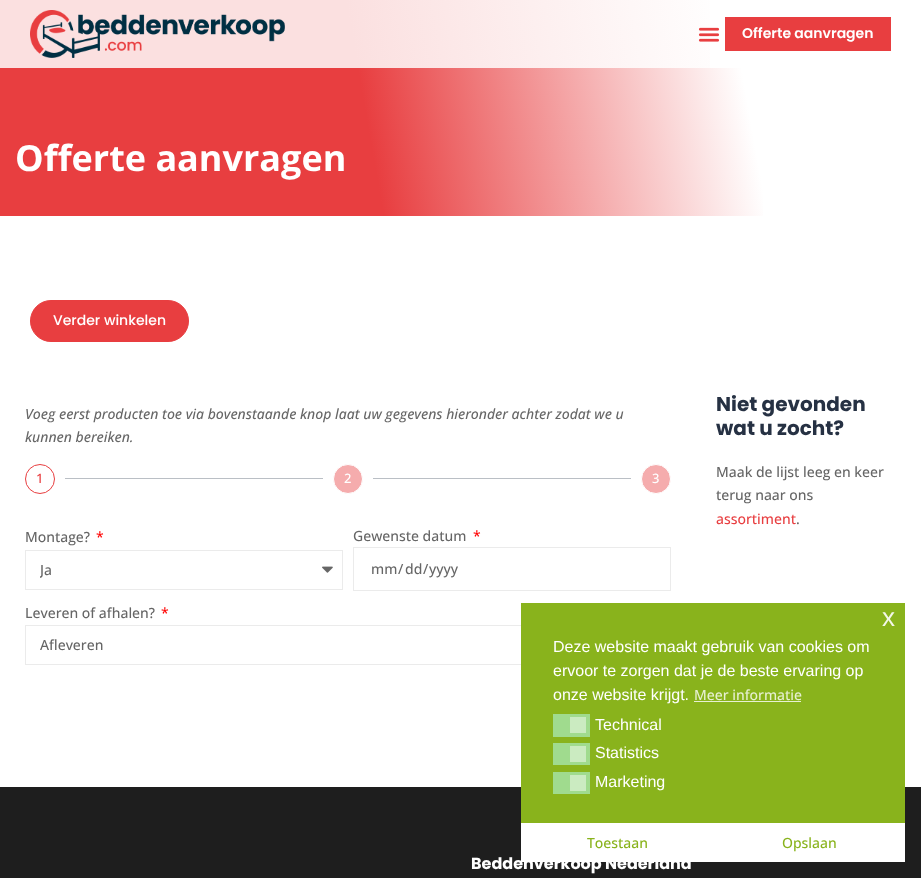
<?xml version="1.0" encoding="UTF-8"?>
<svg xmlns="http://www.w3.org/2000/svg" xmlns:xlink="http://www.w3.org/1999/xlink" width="921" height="878">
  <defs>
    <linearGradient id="g1" gradientUnits="userSpaceOnUse" x1="-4.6" y1="190" x2="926" y2="26"><stop offset="0.4" stop-color="#fbe0e0" /><stop offset="0.8" stop-color="#ffffff" /></linearGradient>
    <linearGradient id="g2" gradientUnits="userSpaceOnUse" x1="-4.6" y1="190" x2="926" y2="26"><stop offset="0.4" stop-color="#e83e40" /><stop offset="0.8" stop-color="#ffffff" /></linearGradient>
    <clipPath id="clip1"><rect x="40" y="558" width="282" height="24" /></clipPath>
  </defs>
  <rect width="100%" height="100%" fill="#ffffff" />
  <rect width="710" height="68" fill="url(#g1)" />
  <image x="30" y="10" width="255" height="48" xlink:href="image1.png" />
  <image x="698" y="27" width="22" height="15" xlink:href="image2.png" />
  <rect x="725" y="17" width="166" height="34" fill="#e83e40" />
  <rect y="68" width="763" height="148" fill="url(#g2)" />
  <rect x="30.5" y="300.5" width="158" height="41" rx="20.5" fill="#e83e40" stroke="#e83e40" />
  <circle cx="40" cy="479" r="14.5" fill="none" stroke="#e83e40" />
  <rect x="65" y="478" width="258" height="1" fill="#babfc5" />
  <circle cx="348" cy="479" r="14.5" fill="#f5acad" stroke="#ffffff" />
  <rect x="373" y="478" width="258" height="1" fill="#babfc5" />
  <circle cx="656" cy="479" r="14.5" fill="#f5acad" stroke="#ffffff" />
  <rect x="25.5" y="550.5" width="317" height="39" fill="none" stroke="#ebebeb" />
  <image x="322" y="566" width="11" height="7" xlink:href="image3.png" />
  <rect x="353.5" y="547.5" width="317" height="43" fill="none" stroke="#ebebeb" />
  <rect x="25.5" y="625.5" width="645" height="39" fill="none" stroke="#ebebeb" />
  <rect y="787" width="921" height="91" fill="#1e1e1e" />
  <rect x="521" y="603" width="384" height="220" fill="#89b31c" />
  <rect x="694" y="701" width="107" height="1" fill="#e7f0d2" />
  <rect x="553" y="714" width="37" height="23" fill="#a0db8e" />
  <rect x="570" y="717" width="16" height="16" fill="#cbebc1" />
  <rect x="553" y="743" width="37" height="22" fill="#a0db8e" />
  <rect x="570" y="746" width="16" height="16" fill="#cbebc1" />
  <rect x="553" y="772" width="37" height="22" fill="#a0db8e" />
  <rect x="570" y="775" width="16" height="16" fill="#cbebc1" />
  <rect x="521" y="823" width="384" height="39" fill="#ffffff" />
  <text x="742" y="38" style="font-family: Poppins; font-size: 14px; font-weight: 600; fill: #ffffff">Offerte aanvragen</text>
  <text x="15" y="171" style="font-family: Open Sans; font-size: 36px; font-weight: bold; fill: #ffffff">Offerte aanvragen</text>
  <text x="53" y="325" style="font-family: Poppins; font-size: 14px; font-weight: 500; fill: #ffffff">Verder winkelen</text>
  <text x="25" y="419" style="font-family: Open Sans; font-size: 14px; font-weight: 500; font-style: italic; fill: #666666">Voeg eerst producten toe via bovenstaande knop laat uw gegevens hieronder achter zodat we u</text>
  <text x="25" y="442" style="font-family: Open Sans; font-size: 14px; font-weight: 500; font-style: italic; fill: #666666">kunnen bereiken.</text>
  <text x="36" y="483" style="font-family: Open Sans; font-size: 13px; font-weight: 500; fill: #e83e40">1</text>
  <text x="344" y="483" style="font-family: Open Sans; font-size: 13px; font-weight: 500; fill: #ffffff">2</text>
  <text x="652" y="483" style="font-family: Open Sans; font-size: 13px; font-weight: 500; fill: #ffffff">3</text>
  <text x="25" y="542" style="font-family: Open Sans; font-size: 14px; font-weight: 500; fill: #666666">Montage?</text>
  <text x="96" y="542" style="font-family: Open Sans; font-size: 14px; font-weight: 500; fill: #ff0000">*</text>
  <g clip-path="url(#clip1)">
    <text x="40" y="575" style="font-family: Open Sans; font-size: 14px; font-weight: 500; fill: #666666">Ja</text>
  </g>
  <text x="353" y="541" style="font-family: Open Sans; font-size: 14px; font-weight: 500; fill: #666666">Gewenste datum</text>
  <text x="473" y="541" style="font-family: Open Sans; font-size: 14px; font-weight: 500; fill: #ff0000">*</text>
  <text x="371" y="574" style="font-family: Open Sans; font-size: 14px; font-weight: 500; fill: #666666">mm</text>
  <text x="398" y="574" style="font-family: Open Sans; font-size: 14px; font-weight: 500; fill: #666666">/</text>
  <text x="405" y="574" style="font-family: Open Sans; font-size: 14px; font-weight: 500; fill: #666666">dd</text>
  <text x="423" y="574" style="font-family: Open Sans; font-size: 14px; font-weight: 500; fill: #666666">/</text>
  <text x="429" y="574" style="font-family: Open Sans; font-size: 14px; font-weight: 500; fill: #666666">yyyy</text>
  <text x="25" y="618" style="font-family: Open Sans; font-size: 14px; font-weight: 500; fill: #666666">Leveren of afhalen?</text>
  <text x="161" y="618" style="font-family: Open Sans; font-size: 14px; font-weight: 500; fill: #ff0000">*</text>
  <text x="40" y="650" style="font-family: Open Sans; font-size: 14px; font-weight: 500; fill: #666666">Afleveren</text>
  <text x="716" y="411" style="font-family: Poppins; font-size: 20px; font-weight: bold; fill: #263143">Niet gevonden</text>
  <text x="716" y="435" style="font-family: Poppins; font-size: 20px; font-weight: bold; fill: #263143">wat u zocht?</text>
  <text x="716" y="477" style="font-family: Open Sans; font-size: 14px; font-weight: 500; fill: #666666">Maak de lijst leeg en keer</text>
  <text x="716" y="500" style="font-family: Open Sans; font-size: 14px; font-weight: 500; fill: #666666">terug naar ons</text>
  <text x="716" y="524" style="font-family: Open Sans; font-size: 14px; font-weight: 500; fill: #e83e40">assortiment</text>
  <text x="796" y="524" style="font-family: Open Sans; font-size: 14px; font-weight: 500; fill: #666666">.</text>
  <text x="882" y="626" style="font-family: Liberation Sans; font-size: 26px; fill: #f3f7e8">x</text>
  <text x="553" y="652" style="font-family: Liberation Sans; font-size: 16px; fill: #ffffff">Deze website maakt gebruik van cookies om</text>
  <text x="553" y="676" style="font-family: Liberation Sans; font-size: 16px; fill: #ffffff">ervoor te zorgen dat je de beste ervaring op</text>
  <text x="553" y="700" style="font-family: Liberation Sans; font-size: 16px; fill: #ffffff">onze website krijgt.</text>
  <text x="694" y="700" style="font-family: Open Sans; font-size: 14px; font-weight: 500; fill: #e7f0d2">Meer informatie</text>
  <text x="595" y="730" style="font-family: Liberation Sans; font-size: 16px; fill: #ffffff">Technical</text>
  <text x="595" y="758" style="font-family: Liberation Sans; font-size: 16px; fill: #ffffff">Statistics</text>
  <text x="595" y="787" style="font-family: Liberation Sans; font-size: 16px; fill: #ffffff">Marketing</text>
  <text x="587" y="848" style="font-family: Open Sans; font-size: 14px; font-weight: 500; fill: #89b31c">Toestaan</text>
  <text x="782" y="848" style="font-family: Open Sans; font-size: 14px; font-weight: 500; fill: #89b31c">Opslaan</text>
  <text x="471" y="869" style="font-family: Poppins; font-size: 16px; font-weight: bold; fill: #ffffff">Beddenverkoop Nederland</text>
</svg>
